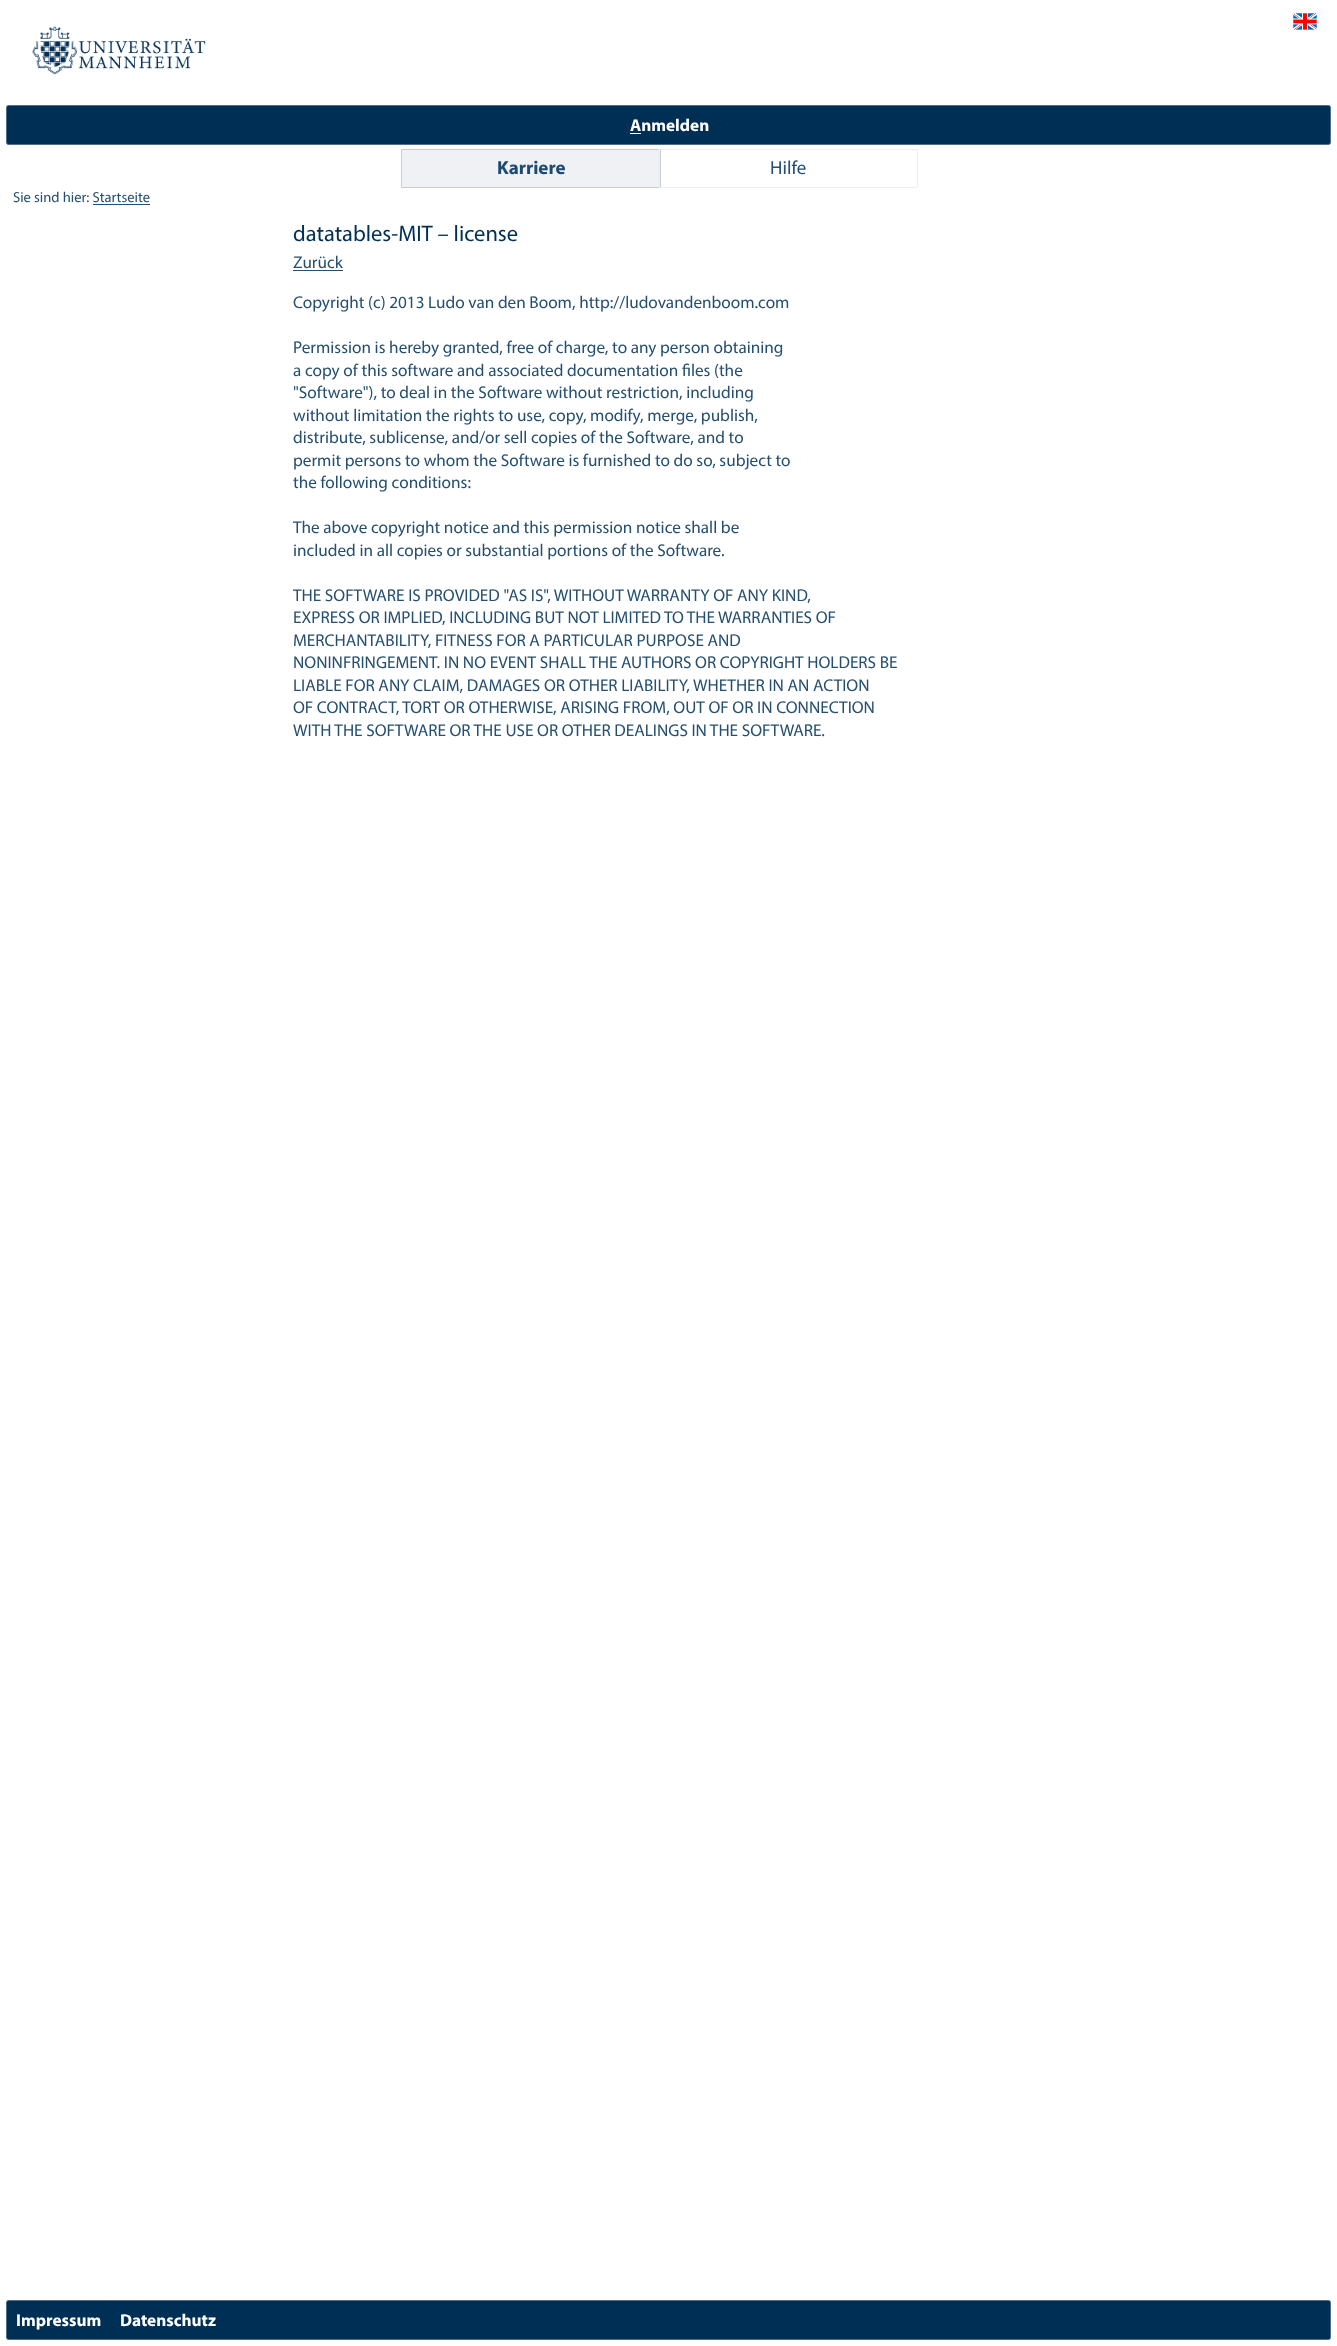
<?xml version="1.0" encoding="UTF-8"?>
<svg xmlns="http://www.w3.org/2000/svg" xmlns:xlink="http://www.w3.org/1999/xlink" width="1337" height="2346">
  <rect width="100%" height="100%" fill="#ffffff" />
  <image x="1293" y="13" width="24" height="17" xlink:href="image1.png" />
  <image x="32" y="26" width="174" height="49" xlink:href="image2.png" />
  <rect x="6.5" y="105.5" width="1324" height="39" rx="2" fill="#002f56" stroke="#526c8e" />
  <rect x="630" y="133" width="11" height="1" fill="#ffffff" />
  <rect x="401.5" y="149.5" width="259" height="38" rx="0.5" fill="#eff1f5" stroke="#cccccc" />
  <rect x="658.5" y="149.5" width="259" height="38" rx="0.5" fill="none" stroke="#e9eef0" />
  <rect x="93" y="204" width="57" height="1" fill="#264f6f" />
  <rect x="293" y="270" width="50" height="1" fill="#264f6f" />
  <rect x="6.5" y="2300.5" width="1324" height="39" rx="2" fill="#002f56" stroke="#526c8e" />
  <text x="630" y="131" style="font-family: Myriad; font-size: 17.2px; font-weight: bold; fill: #ffffff">Anmelden</text>
  <text x="497" y="174" style="font-family: Myriad; font-size: 19px; font-weight: bold; fill: #1c4a70">Karriere</text>
  <text x="770" y="174" style="font-family: Myriad; font-size: 19px; fill: #264f6f">Hilfe</text>
  <text x="13" y="202" style="font-family: Myriad; font-size: 14.6px; fill: #264f6f">Sie sind hier: Startseite</text>
  <text x="293" y="241" style="font-family: Myriad; font-size: 22.5px; fill: #003056">datatables-MIT – license</text>
  <text x="293" y="268" style="font-family: Myriad; font-size: 17.2px; fill: #264f6f">Zurück</text>
  <text x="293" y="308" style="font-family: Myriad; font-size: 17.2px; fill: #264f6f">Copyright (c) 2013 Ludo van den Boom, http://ludovandenboom.com</text>
  <text x="293" y="353" style="font-family: Myriad; font-size: 17.2px; fill: #264f6f">Permission is hereby granted, free of charge, to any person obtaining</text>
  <text x="293" y="376" style="font-family: Myriad; font-size: 17.2px; fill: #264f6f">a copy of this software and associated documentation files (the</text>
  <text x="293" y="398" style="font-family: Myriad; font-size: 17.2px; fill: #264f6f">"Software"), to deal in the Software without restriction, including</text>
  <text x="293" y="421" style="font-family: Myriad; font-size: 17.2px; fill: #264f6f">without limitation the rights to use, copy, modify, merge, publish,</text>
  <text x="293" y="443" style="font-family: Myriad; font-size: 17.2px; fill: #264f6f">distribute, sublicense, and/or sell copies of the Software, and to</text>
  <text x="293" y="466" style="font-family: Myriad; font-size: 17.2px; fill: #264f6f">permit persons to whom the Software is furnished to do so, subject to</text>
  <text x="293" y="488" style="font-family: Myriad; font-size: 17.2px; fill: #264f6f">the following conditions:</text>
  <text x="293" y="533" style="font-family: Myriad; font-size: 17.2px; fill: #264f6f">The above copyright notice and this permission notice shall be</text>
  <text x="293" y="556" style="font-family: Myriad; font-size: 17.2px; fill: #264f6f">included in all copies or substantial portions of the Software.</text>
  <text x="293" y="601" style="font-family: Myriad; font-size: 17.2px; fill: #264f6f">THE SOFTWARE IS PROVIDED "AS IS", WITHOUT WARRANTY OF ANY KIND,</text>
  <text x="293" y="623" style="font-family: Myriad; font-size: 17.2px; fill: #264f6f">EXPRESS OR IMPLIED, INCLUDING BUT NOT LIMITED TO THE WARRANTIES OF</text>
  <text x="293" y="646" style="font-family: Myriad; font-size: 17.2px; fill: #264f6f">MERCHANTABILITY, FITNESS FOR A PARTICULAR PURPOSE AND</text>
  <text x="293" y="668" style="font-family: Myriad; font-size: 17.2px; fill: #264f6f">NONINFRINGEMENT. IN NO EVENT SHALL THE AUTHORS OR COPYRIGHT HOLDERS BE</text>
  <text x="293" y="691" style="font-family: Myriad; font-size: 17.2px; fill: #264f6f">LIABLE FOR ANY CLAIM, DAMAGES OR OTHER LIABILITY, WHETHER IN AN ACTION</text>
  <text x="293" y="713" style="font-family: Myriad; font-size: 17.2px; fill: #264f6f">OF CONTRACT, TORT OR OTHERWISE, ARISING FROM, OUT OF OR IN CONNECTION</text>
  <text x="293" y="736" style="font-family: Myriad; font-size: 17.2px; fill: #264f6f">WITH THE SOFTWARE OR THE USE OR OTHER DEALINGS IN THE SOFTWARE.</text>
  <text x="16" y="2326" style="font-family: Myriad; font-size: 17.2px; font-weight: bold; fill: #ffffff">Impressum</text>
  <text x="120" y="2326" style="font-family: Myriad; font-size: 17.2px; font-weight: bold; fill: #ffffff">Datenschutz</text>
</svg>
